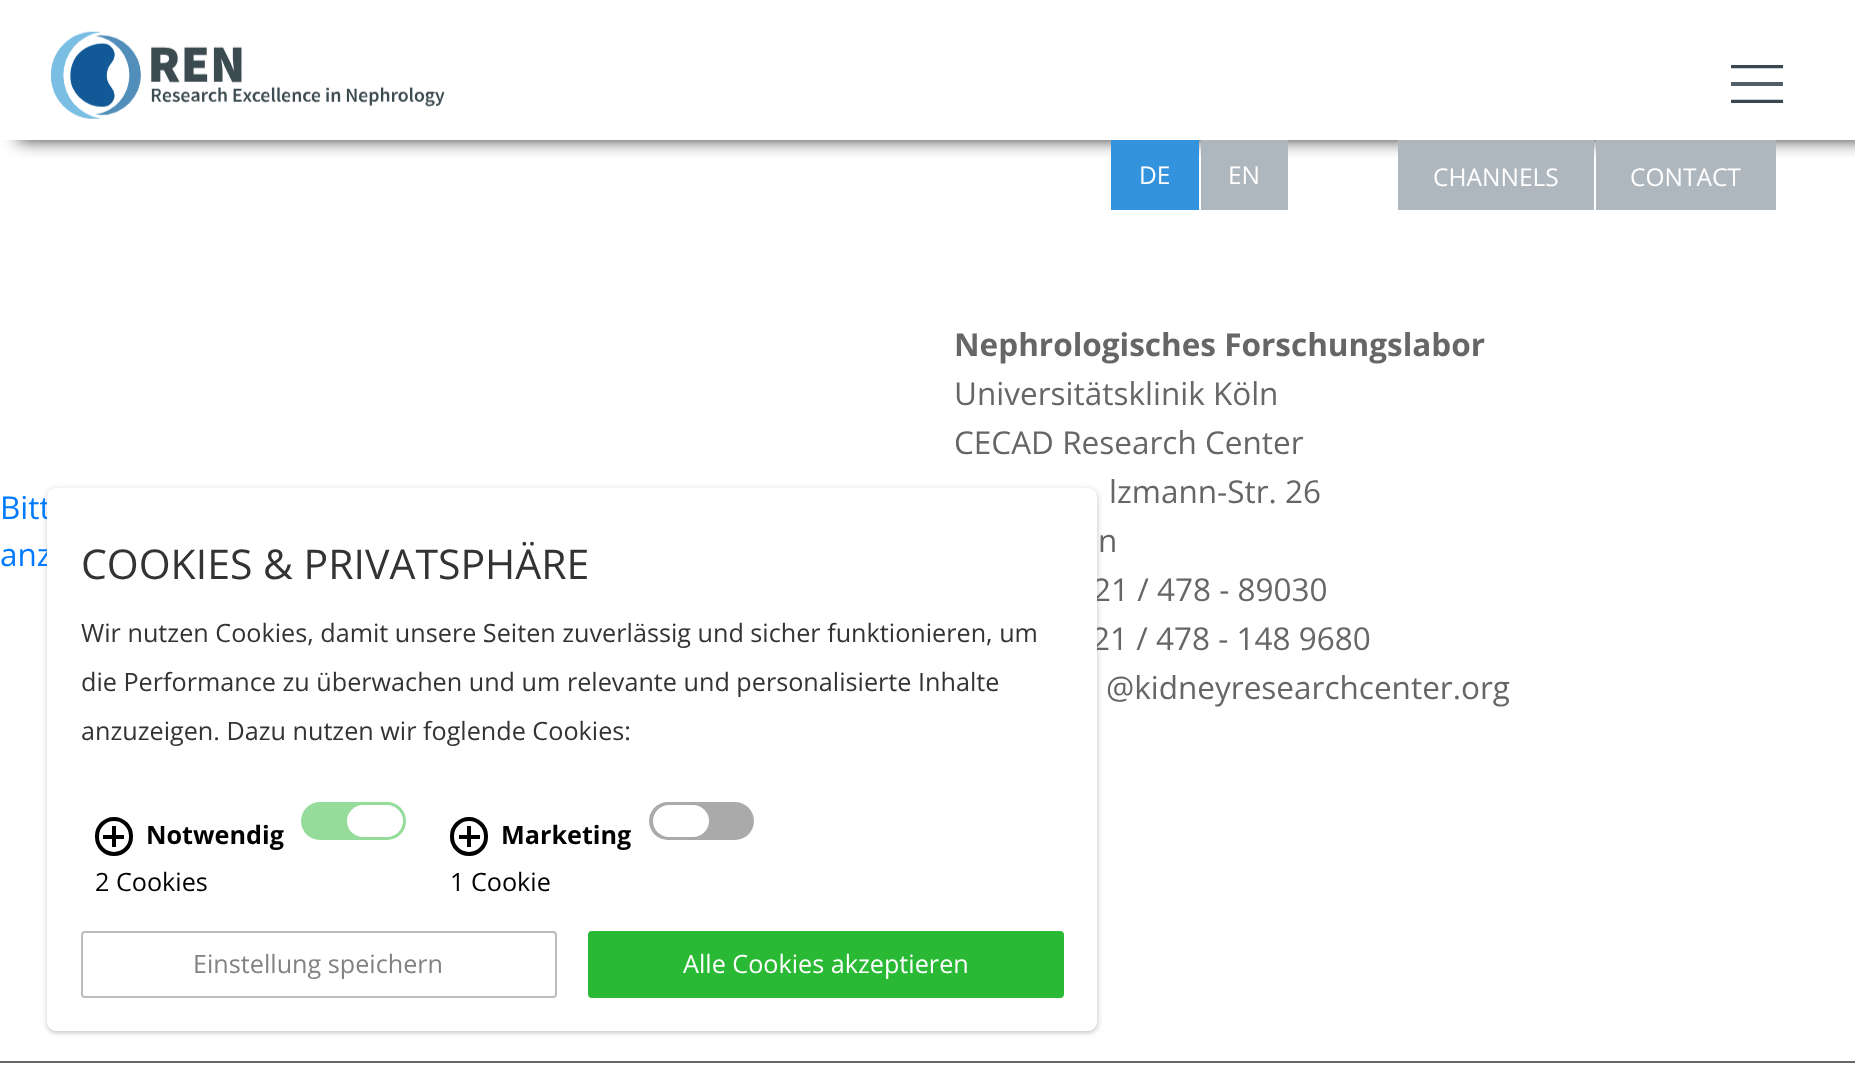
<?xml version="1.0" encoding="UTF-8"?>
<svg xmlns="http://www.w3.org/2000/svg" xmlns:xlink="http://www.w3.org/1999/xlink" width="1855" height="1077">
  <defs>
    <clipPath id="clip1"><rect x="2" y="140" width="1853" height="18" /></clipPath>
    <clipPath id="clip2"><rect x="1729" y="65" width="56" height="38" /></clipPath>
  </defs>
  <rect width="100%" height="100%" fill="#ffffff" />
  <g clip-path="url(#clip1)">
    <rect x="18" width="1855" height="140" fill="#333333" filter="blur(9px)" />
  </g>
  <image x="51" y="31" width="394" height="88" xlink:href="image1.png" />
  <g clip-path="url(#clip2)">
    <path d="M 1731 66.5 h 52" fill="none" stroke="#394751" stroke-width="3.5" />
  </g>
  <rect x="1731" y="82" width="52" height="4" fill="#525e67" />
  <g clip-path="url(#clip2)">
    <path d="M 1731 101.5 h 52" fill="none" stroke="#394751" stroke-width="3.5" />
  </g>
  <rect x="1111" y="140" width="88" height="70" fill="#3393dd" />
  <rect x="1201" y="140" width="87" height="70" fill="#aeb7be" />
  <rect x="1398" y="140" width="196" height="70" fill="#aeb7be" />
  <rect x="1596" y="140" width="180" height="70" fill="#aeb7be" />
  <rect y="1061" width="1855" height="2" fill="#666666" />
  <rect x="46" y="488" width="1053" height="546" rx="11" fill="#3c4043" fill-opacity="0.16" filter="blur(2.5px)" />
  <rect x="47" y="490" width="1050" height="543" rx="9" fill="#3c4043" fill-opacity="0.08" filter="blur(1px)" />
  <text x="1139" y="184" style="font-family: Open Sans; font-size: 24.5px; fill: #ffffff">DE</text>
  <text x="1228" y="184" style="font-family: Open Sans; font-size: 24.5px; fill: #ffffff">EN</text>
  <text x="1433" y="186" style="font-family: Open Sans; font-size: 24.5px; fill: #ffffff">CHANNELS</text>
  <text x="1630" y="186" style="font-family: Open Sans; font-size: 24.5px; fill: #ffffff">CONTACT</text>
  <text x="0" y="519" style="font-family: Open Sans; font-size: 31.5px; fill: #007bff">Bitt</text>
  <text x="0" y="566" style="font-family: Open Sans; font-size: 31.5px; fill: #007bff">anz</text>
  <text x="954" y="356" style="font-family: Open Sans; font-size: 31.5px; font-weight: bold; fill: #666666">Nephrologisches Forschungslabor</text>
  <text x="954" y="405" style="font-family: Open Sans; font-size: 31.5px; fill: #666666">Universitätsklinik Köln</text>
  <text x="954" y="454" style="font-family: Open Sans; font-size: 31.5px; fill: #666666">CECAD Research Center</text>
  <text x="1109" y="503" style="font-family: Open Sans; font-size: 31.5px; fill: #666666">lzmann-Str. 26</text>
  <text x="1098" y="552" style="font-family: Open Sans; font-size: 31.5px; fill: #666666">n</text>
  <text x="1093" y="601" style="font-family: Open Sans; font-size: 31.5px; fill: #666666">21 / 478 - 89030</text>
  <text x="1092" y="650" style="font-family: Open Sans; font-size: 31.5px; fill: #666666">21 / 478 - 148 9680</text>
  <text x="1106" y="699" style="font-family: Open Sans; font-size: 31.5px; fill: #666666">@kidneyresearchcenter.org</text>
  <rect x="47" y="488" width="1050" height="543" rx="9" fill="#ffffff" />
  <text x="81" y="579" style="font-family: Open Sans; font-size: 41px; fill: #333333">COOKIES &amp; PRIVATSPHÄRE</text>
  <text x="81" y="642" style="font-family: Open Sans; font-size: 25.2px; fill: #333333">Wir nutzen Cookies, damit unsere Seiten zuverlässig und sicher funktionieren, um</text>
  <text x="81" y="691" style="font-family: Open Sans; font-size: 25.2px; fill: #333333">die Performance zu überwachen und um relevante und personalisierte Inhalte</text>
  <text x="81" y="740" style="font-family: Open Sans; font-size: 25.2px; fill: #333333">anzuzeigen. Dazu nutzen wir foglende Cookies:</text>
  <rect x="97" y="819" width="34" height="35" rx="17" fill="none" stroke="#000000" stroke-width="4" />
  <rect x="112" y="826" width="4" height="21" fill="#000000" />
  <rect x="103" y="835" width="21" height="4" fill="#000000" />
  <text x="146" y="844" style="font-family: Open Sans; font-size: 25.2px; font-weight: bold; fill: #000000">Notwendig</text>
  <rect x="301" y="802" width="105" height="38" rx="19" fill="#95dc9a" />
  <rect x="347" y="805" width="56" height="32" rx="16" fill="#ffffff" />
  <text x="95" y="891" style="font-family: Open Sans; font-size: 25.2px; fill: #000000">2 Cookies</text>
  <rect x="452" y="819" width="34" height="35" rx="17" fill="none" stroke="#000000" stroke-width="4" />
  <rect x="467" y="826" width="4" height="21" fill="#000000" />
  <rect x="459" y="835" width="21" height="4" fill="#000000" />
  <text x="501" y="844" style="font-family: Open Sans; font-size: 25.2px; font-weight: bold; fill: #000000">Marketing</text>
  <rect x="649" y="802" width="105" height="38" rx="19" fill="#aaaaaa" />
  <rect x="653" y="805" width="56" height="32" rx="16" fill="#ffffff" />
  <text x="450" y="891" style="font-family: Open Sans; font-size: 25.2px; fill: #000000">1 Cookie</text>
  <rect x="82" y="932" width="474" height="65" rx="3" fill="none" stroke="#bcbcbc" stroke-width="2" />
  <text x="193" y="973" style="font-family: Open Sans; font-size: 25.2px; fill: #828282">Einstellung speichern</text>
  <rect x="589" y="932" width="474" height="65" rx="3" fill="#2ab934" stroke="#2ab934" stroke-width="2" />
  <text x="683" y="973" style="font-family: Open Sans; font-size: 25.2px; fill: #ffffff">Alle Cookies akzeptieren</text>
</svg>
